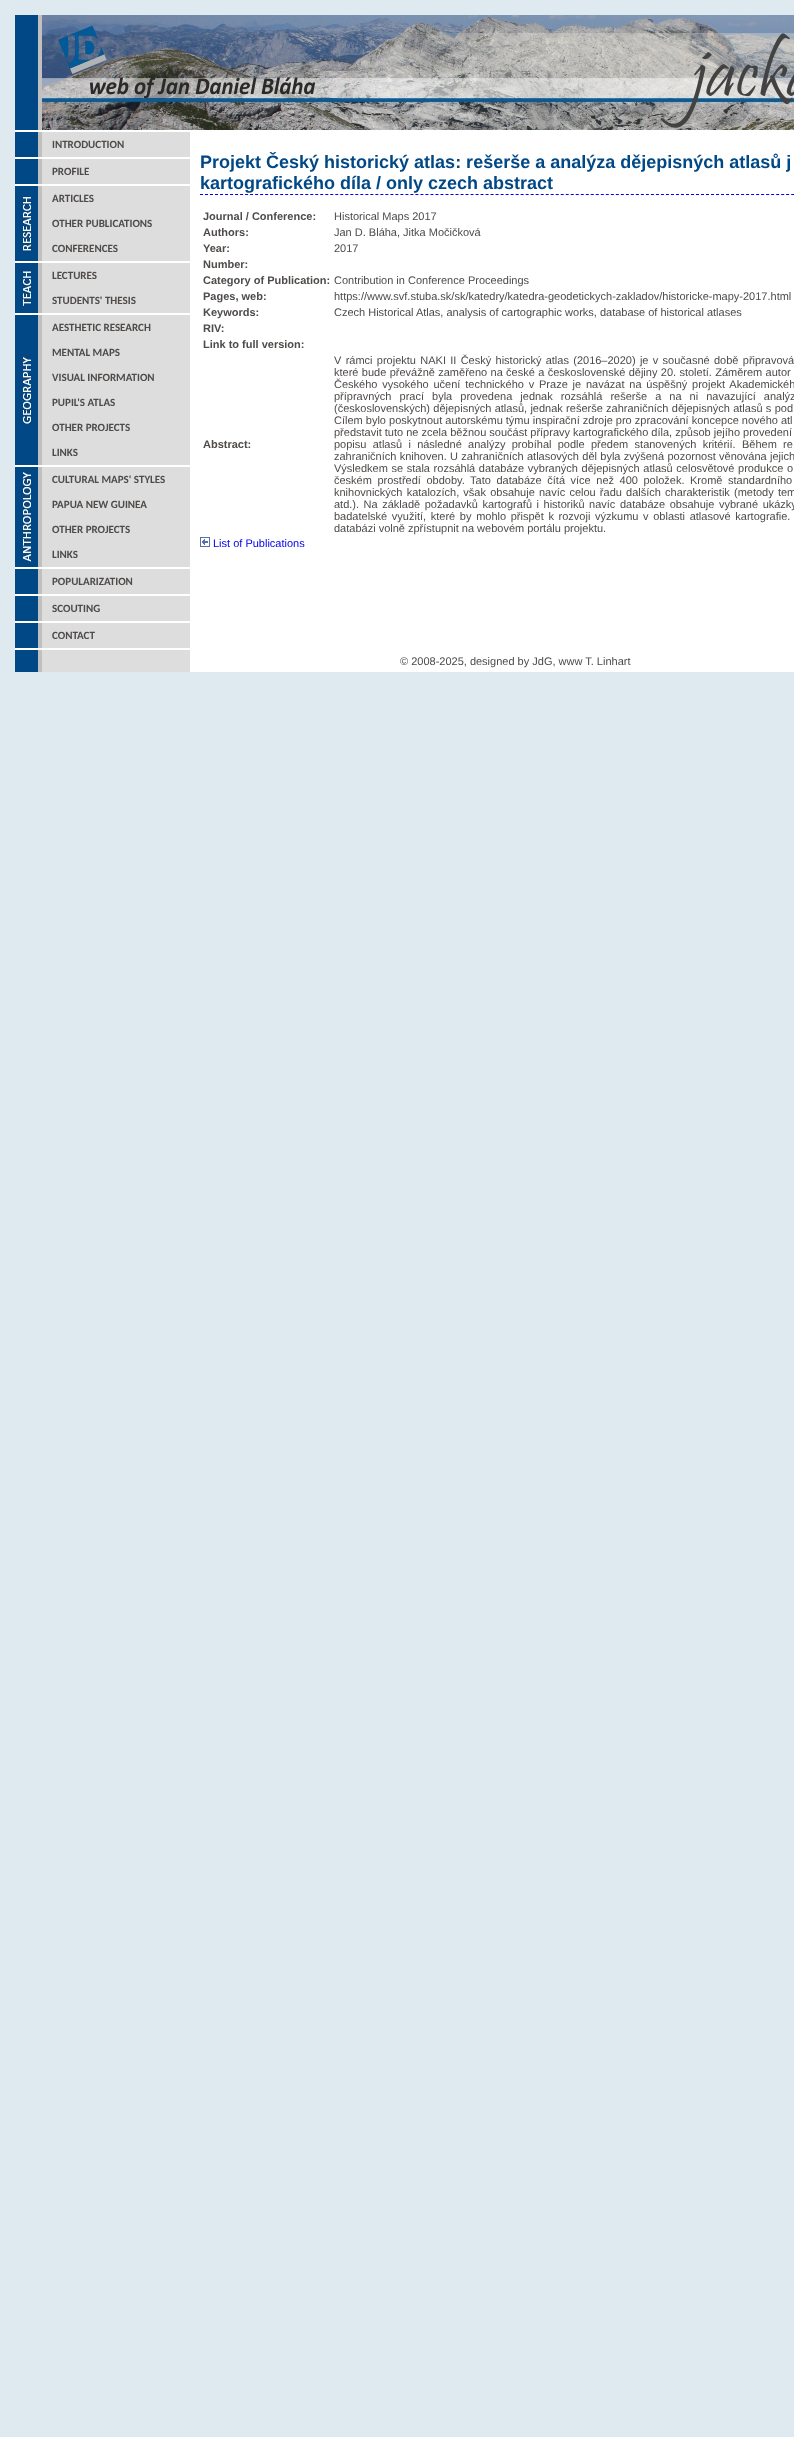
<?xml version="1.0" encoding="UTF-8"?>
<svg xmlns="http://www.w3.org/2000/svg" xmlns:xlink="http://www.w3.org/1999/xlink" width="794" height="2437">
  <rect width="100%" height="100%" fill="#dfe9f0" />
  <rect x="190" y="130" width="604" height="542" fill="#ffffff" />
  <image x="15" y="15" width="175" height="657" xlink:href="image1.png" />
  <image x="39" y="15" width="755" height="115" xlink:href="image2.png" />
  <rect x="15" y="130" width="175" height="2" fill="#ffffff" />
  <rect x="15" y="157" width="175" height="2" fill="#ffffff" />
  <rect x="15" y="184" width="175" height="2" fill="#ffffff" />
  <rect x="15" y="261" width="175" height="2" fill="#ffffff" />
  <image x="20" y="196" width="11" height="57" xlink:href="image3.png" />
  <rect x="15" y="313" width="175" height="2" fill="#ffffff" />
  <image x="20" y="270" width="11" height="37" xlink:href="image4.png" />
  <rect x="15" y="465" width="175" height="2" fill="#ffffff" />
  <image x="20" y="354" width="11" height="70" xlink:href="image5.png" />
  <rect x="15" y="567" width="175" height="2" fill="#ffffff" />
  <image x="20" y="471" width="11" height="92" xlink:href="image6.png" />
  <rect x="15" y="594" width="175" height="2" fill="#ffffff" />
  <rect x="15" y="621" width="175" height="2" fill="#ffffff" />
  <rect x="15" y="648" width="175" height="2" fill="#ffffff" />
  <path d="M 200 194.5 h 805" fill="none" stroke="#0000ff" stroke-dasharray="3 2.01" />
  <image x="200" y="537" width="10" height="10" xlink:href="image7.png" />
  <text x="52" y="148" style="font-family: Carlito; font-size: 11px; font-weight: bold; fill: #4e4b49">INTRODUCTION</text>
  <text x="52" y="175" style="font-family: Carlito; font-size: 11px; font-weight: bold; fill: #4e4b49">PROFILE</text>
  <text x="52" y="202" style="font-family: Carlito; font-size: 11px; font-weight: bold; fill: #4e4b49">ARTICLES</text>
  <text x="52" y="227" style="font-family: Carlito; font-size: 11px; font-weight: bold; fill: #4e4b49">OTHER PUBLICATIONS</text>
  <text x="52" y="252" style="font-family: Carlito; font-size: 11px; font-weight: bold; fill: #4e4b49">CONFERENCES</text>
  <text x="52" y="279" style="font-family: Carlito; font-size: 11px; font-weight: bold; fill: #4e4b49">LECTURES</text>
  <text x="52" y="304" style="font-family: Carlito; font-size: 11px; font-weight: bold; fill: #4e4b49">STUDENTS' THESIS</text>
  <text x="52" y="331" style="font-family: Carlito; font-size: 11px; font-weight: bold; fill: #4e4b49">AESTHETIC RESEARCH</text>
  <text x="52" y="356" style="font-family: Carlito; font-size: 11px; font-weight: bold; fill: #4e4b49">MENTAL MAPS</text>
  <text x="52" y="381" style="font-family: Carlito; font-size: 11px; font-weight: bold; fill: #4e4b49">VISUAL INFORMATION</text>
  <text x="52" y="406" style="font-family: Carlito; font-size: 11px; font-weight: bold; fill: #4e4b49">PUPIL'S ATLAS</text>
  <text x="52" y="431" style="font-family: Carlito; font-size: 11px; font-weight: bold; fill: #4e4b49">OTHER PROJECTS</text>
  <text x="52" y="456" style="font-family: Carlito; font-size: 11px; font-weight: bold; fill: #4e4b49">LINKS</text>
  <text x="52" y="483" style="font-family: Carlito; font-size: 11px; font-weight: bold; fill: #4e4b49">CULTURAL MAPS' STYLES</text>
  <text x="52" y="508" style="font-family: Carlito; font-size: 11px; font-weight: bold; fill: #4e4b49">PAPUA NEW GUINEA</text>
  <text x="52" y="533" style="font-family: Carlito; font-size: 11px; font-weight: bold; fill: #4e4b49">OTHER PROJECTS</text>
  <text x="52" y="558" style="font-family: Carlito; font-size: 11px; font-weight: bold; fill: #4e4b49">LINKS</text>
  <text x="52" y="585" style="font-family: Carlito; font-size: 11px; font-weight: bold; fill: #4e4b49">POPULARIZATION</text>
  <text x="52" y="612" style="font-family: Carlito; font-size: 11px; font-weight: bold; fill: #4e4b49">SCOUTING</text>
  <text x="52" y="639" style="font-family: Carlito; font-size: 11px; font-weight: bold; fill: #4e4b49">CONTACT</text>
  <text x="200" y="168" style="font-family: Liberation Sans; font-size: 18px; font-weight: bold; fill: #004886">Projekt Český historický atlas: rešerše a analýza dějepisných atlasů j</text>
  <text x="200" y="189" style="font-family: Liberation Sans; font-size: 18px; font-weight: bold; fill: #004886">kartografického díla / only czech abstract</text>
  <text x="203" y="220" style="font-family: Liberation Sans; font-size: 11px; font-weight: bold; fill: #4e4b49">Journal / Conference:</text>
  <text x="334" y="220" style="font-family: Liberation Sans; font-size: 11px; fill: #4e4b49">Historical Maps 2017</text>
  <text x="203" y="236" style="font-family: Liberation Sans; font-size: 11px; font-weight: bold; fill: #4e4b49">Authors:</text>
  <text x="334" y="236" style="font-family: Liberation Sans; font-size: 11px; fill: #4e4b49">Jan D. Bláha, Jitka Močičková</text>
  <text x="203" y="252" style="font-family: Liberation Sans; font-size: 11px; font-weight: bold; fill: #4e4b49">Year:</text>
  <text x="334" y="252" style="font-family: Liberation Sans; font-size: 11px; fill: #4e4b49">2017</text>
  <text x="203" y="268" style="font-family: Liberation Sans; font-size: 11px; font-weight: bold; fill: #4e4b49">Number:</text>
  <text x="203" y="284" style="font-family: Liberation Sans; font-size: 11px; font-weight: bold; fill: #4e4b49">Category of Publication:</text>
  <text x="334" y="284" style="font-family: Liberation Sans; font-size: 11px; fill: #4e4b49">Contribution in Conference Proceedings</text>
  <text x="203" y="300" style="font-family: Liberation Sans; font-size: 11px; font-weight: bold; fill: #4e4b49">Pages, web:</text>
  <text x="334" y="300" style="font-family: Liberation Sans; font-size: 11px; fill: #4e4b49">https://www.svf.stuba.sk/sk/katedry/katedra-geodetickych-zakladov/historicke-mapy-2017.html</text>
  <text x="203" y="316" style="font-family: Liberation Sans; font-size: 11px; font-weight: bold; fill: #4e4b49">Keywords:</text>
  <text x="334" y="316" style="font-family: Liberation Sans; font-size: 11px; fill: #4e4b49">Czech Historical Atlas, analysis of cartographic works, database of historical atlases</text>
  <text x="203" y="332" style="font-family: Liberation Sans; font-size: 11px; font-weight: bold; fill: #4e4b49">RIV:</text>
  <text x="203" y="348" style="font-family: Liberation Sans; font-size: 11px; font-weight: bold; fill: #4e4b49">Link to full version:</text>
  <text x="203" y="448" style="font-family: Liberation Sans; font-size: 11px; font-weight: bold; fill: #4e4b49">Abstract:</text>
  <text x="334" y="364" word-spacing="1.25" style="font-family: Liberation Sans; font-size: 11px; fill: #4e4b49">V rámci projektu NAKI II Český historický atlas (2016–2020) je v současné době připravová</text>
  <text x="334" y="376" word-spacing="0.3" style="font-family: Liberation Sans; font-size: 11px; fill: #4e4b49">které bude převážně zaměřeno na české a československé dějiny 20. století. Záměrem autor</text>
  <text x="334" y="388" word-spacing="1.75" style="font-family: Liberation Sans; font-size: 11px; fill: #4e4b49">Českého vysokého učení technického v Praze je navázat na úspěšný projekt Akademickéh</text>
  <text x="334" y="400" word-spacing="5" style="font-family: Liberation Sans; font-size: 11px; fill: #4e4b49">přípravných prací byla provedena jednak rozsáhlá rešerše a na ni navazující analýz</text>
  <text x="334" y="412" word-spacing="0.25" style="font-family: Liberation Sans; font-size: 11px; fill: #4e4b49">(československých) dějepisných atlasů, jednak rešerše zahraničních dějepisných atlasů s pod</text>
  <text x="334" y="424" style="font-family: Liberation Sans; font-size: 11px; fill: #4e4b49">Cílem bylo poskytnout autorskému týmu inspirační zdroje pro zpracování koncepce nového atl</text>
  <text x="334" y="436" style="font-family: Liberation Sans; font-size: 11px; fill: #4e4b49">představit tuto ne zcela běžnou součást přípravy kartografického díla, způsob jejího provedení</text>
  <text x="334" y="448" word-spacing="3.25" style="font-family: Liberation Sans; font-size: 11px; fill: #4e4b49">popisu atlasů i následné analýzy probíhal podle předem stanovených kritérií. Během re</text>
  <text x="334" y="460" word-spacing="0.25" style="font-family: Liberation Sans; font-size: 11px; fill: #4e4b49">zahraničních knihoven. U zahraničních atlasových děl byla zvýšená pozornost věnována jejich</text>
  <text x="334" y="472" word-spacing="0.6" style="font-family: Liberation Sans; font-size: 11px; fill: #4e4b49">Výsledkem se stala rozsáhlá databáze vybraných dějepisných atlasů celosvětové produkce o</text>
  <text x="334" y="484" word-spacing="2.5" style="font-family: Liberation Sans; font-size: 11px; fill: #4e4b49">českém prostředí obdoby. Tato databáze čítá více než 400 položek. Kromě standardního</text>
  <text x="334" y="496" word-spacing="1.1" style="font-family: Liberation Sans; font-size: 11px; fill: #4e4b49">knihovnických katalozích, však obsahuje navíc celou řadu dalších charakteristik (metody tem</text>
  <text x="334" y="508" word-spacing="1.5" style="font-family: Liberation Sans; font-size: 11px; fill: #4e4b49">atd.). Na základě požadavků kartografů i historiků navíc databáze obsahuje vybrané ukázky</text>
  <text x="334" y="520" word-spacing="1.6" style="font-family: Liberation Sans; font-size: 11px; fill: #4e4b49">badatelské využití, které by mohlo přispět k rozvoji výzkumu v oblasti atlasové kartografie.</text>
  <text x="334" y="532" style="font-family: Liberation Sans; font-size: 11px; fill: #4e4b49">databázi volně zpřístupnit na webovém portálu projektu.</text>
  <text x="213" y="547" style="font-family: Liberation Sans; font-size: 11px; fill: #0000ee">List of Publications</text>
  <text x="400" y="665" style="font-family: Liberation Sans; font-size: 11px; fill: #4e4b49">© 2008-2025, designed by JdG, www T. Linhart</text>
</svg>
